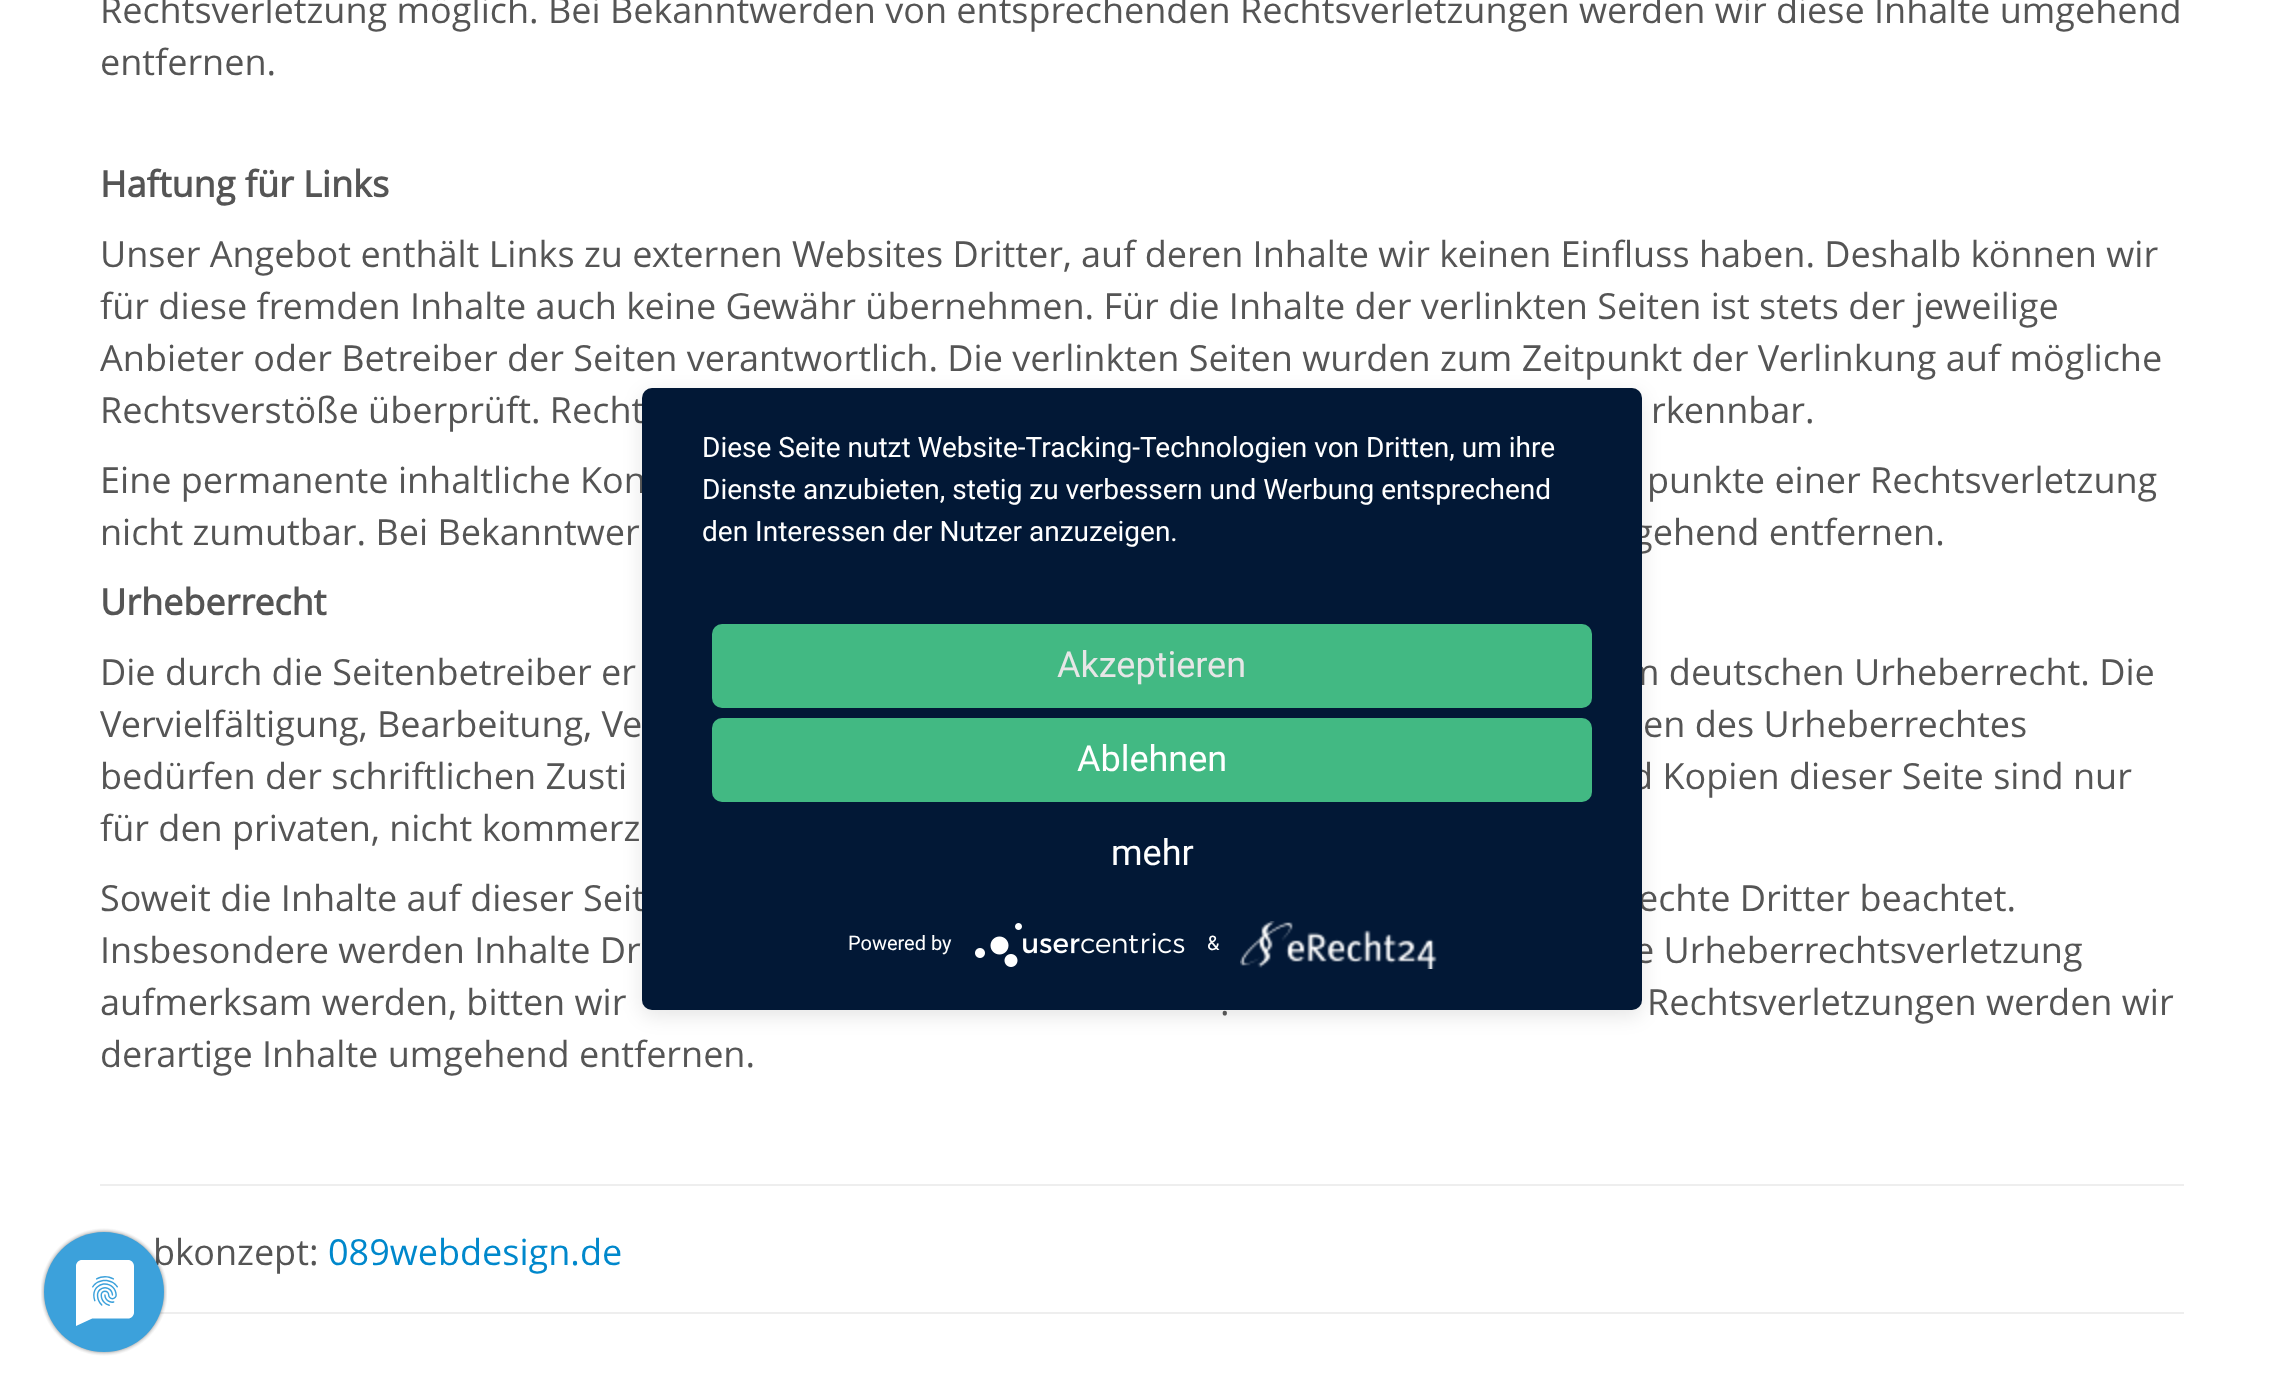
<?xml version="1.0" encoding="UTF-8"?>
<svg xmlns="http://www.w3.org/2000/svg" xmlns:xlink="http://www.w3.org/1999/xlink" width="2284" height="1395">
  <defs>
    <clipPath id="clip1"><rect x="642" y="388" width="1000" height="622" rx="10" /></clipPath>
  </defs>
  <rect width="100%" height="100%" fill="#ffffff" />
  <rect x="100" y="1184" width="2084" height="2" fill="#eeeeee" />
  <rect x="159" y="1312" width="2025" height="2" fill="#eeeeee" />
  <rect x="642" y="394" width="1000" height="622" rx="10" fill="#000000" fill-opacity="0.1" filter="blur(10px)" />
  <g clip-path="url(#clip1)">
    <rect x="642" y="400" width="1000" height="622" fill="#000000" fill-opacity="0.3" filter="blur(36px)" />
  </g>
  <text x="100" y="23" style="font-family: Open Sans; font-size: 36px; fill: #555555">Rechtsverletzung möglich. Bei Bekanntwerden von entsprechenden Rechtsverletzungen werden wir diese Inhalte umgehend</text>
  <text x="100" y="75" style="font-family: Open Sans; font-size: 36px; fill: #555555">entfernen.</text>
  <text x="100" y="197" style="font-family: Open Sans; font-size: 36px; font-weight: bold; fill: #555555">Haftung für Links</text>
  <text x="100" y="267" style="font-family: Open Sans; font-size: 36px; fill: #555555">Unser Angebot enthält Links zu externen Websites Dritter, auf deren Inhalte wir keinen Einfluss haben. Deshalb können wir</text>
  <text x="100" y="319" style="font-family: Open Sans; font-size: 36px; fill: #555555">für diese fremden Inhalte auch keine Gewähr übernehmen. Für die Inhalte der verlinkten Seiten ist stets der jeweilige</text>
  <text x="100" y="371" style="font-family: Open Sans; font-size: 36px; fill: #555555">Anbieter oder Betreiber der Seiten verantwortlich. Die verlinkten Seiten wurden zum Zeitpunkt der Verlinkung auf mögliche</text>
  <text x="100" y="423" style="font-family: Open Sans; font-size: 36px; fill: #555555">Rechtsverstöße überprüft. Recht</text>
  <text x="1651" y="423" style="font-family: Open Sans; font-size: 36px; fill: #555555">rkennbar.</text>
  <text x="100" y="493" style="font-family: Open Sans; font-size: 36px; fill: #555555">Eine permanente inhaltliche Kon</text>
  <text x="1647" y="493" style="font-family: Open Sans; font-size: 36px; fill: #555555">punkte einer Rechtsverletzung</text>
  <text x="100" y="545" style="font-family: Open Sans; font-size: 36px; fill: #555555">nicht zumutbar. Bei Bekanntwer</text>
  <text x="1633" y="545" style="font-family: Open Sans; font-size: 36px; fill: #555555">gehend entfernen.</text>
  <text x="100" y="615" style="font-family: Open Sans; font-size: 36px; font-weight: bold; fill: #555555">Urheberrecht</text>
  <text x="100" y="685" style="font-family: Open Sans; font-size: 36px; fill: #555555">Die durch die Seitenbetreiber er</text>
  <text x="1626" y="685" style="font-family: Open Sans; font-size: 36px; fill: #555555">m deutschen Urheberrecht. Die</text>
  <text x="100" y="737" style="font-family: Open Sans; font-size: 36px; fill: #555555">Vervielfältigung, Bearbeitung, Ve</text>
  <text x="1643" y="737" style="font-family: Open Sans; font-size: 36px; fill: #555555">en des Urheberrechtes</text>
  <text x="100" y="789" style="font-family: Open Sans; font-size: 36px; fill: #555555">bedürfen der schriftlichen Zusti</text>
  <text x="1631" y="789" style="font-family: Open Sans; font-size: 36px; fill: #555555">d Kopien dieser Seite sind nur</text>
  <text x="100" y="841" style="font-family: Open Sans; font-size: 36px; fill: #555555">für den privaten, nicht kommerz</text>
  <text x="100" y="911" style="font-family: Open Sans; font-size: 36px; fill: #555555">Soweit die Inhalte auf dieser Seit</text>
  <text x="1638" y="911" style="font-family: Open Sans; font-size: 36px; fill: #555555">echte Dritter beachtet.</text>
  <text x="100" y="963" style="font-family: Open Sans; font-size: 36px; fill: #555555">Insbesondere werden Inhalte Dr</text>
  <text x="1634" y="963" style="font-family: Open Sans; font-size: 36px; fill: #555555">e Urheberrechtsverletzung</text>
  <text x="100" y="1015" style="font-family: Open Sans; font-size: 36px; fill: #555555">aufmerksam werden, bitten wir</text>
  <text x="1220" y="1015" style="font-family: Open Sans; font-size: 36px; fill: #555555">.</text>
  <text x="1647" y="1015" style="font-family: Open Sans; font-size: 36px; fill: #555555">Rechtsverletzungen werden wir</text>
  <text x="100" y="1067" style="font-family: Open Sans; font-size: 36px; fill: #555555">derartige Inhalte umgehend entfernen.</text>
  <text x="153" y="1265" style="font-family: Open Sans; font-size: 36px; fill: #555555">bkonzept:</text>
  <text x="328" y="1265" style="font-family: Open Sans; font-size: 36px; fill: #0088cc">089webdesign.de</text>
  <rect x="642" y="388" width="1000" height="622" rx="10" fill="#021836" />
  <text x="702" y="457" style="font-family: Roboto; font-size: 28px; fill: #ffffff">Diese Seite nutzt Website-Tracking-Technologien von Dritten, um ihre</text>
  <text x="702" y="499" style="font-family: Roboto; font-size: 28px; fill: #ffffff">Dienste anzubieten, stetig zu verbessern und Werbung entsprechend</text>
  <text x="702" y="541" style="font-family: Roboto; font-size: 28px; fill: #ffffff">den Interessen der Nutzer anzuzeigen.</text>
  <rect x="712" y="624" width="880" height="84" rx="10" fill="#42b983" />
  <text x="1057" y="677" style="font-family: Roboto; font-size: 36px; fill: #e6e6e6">Akzeptieren</text>
  <rect x="712" y="718" width="880" height="84" rx="10" fill="#42b983" />
  <text x="1077" y="771" style="font-family: Roboto; font-size: 36px; fill: #ffffff">Ablehnen</text>
  <text x="1111" y="865" style="font-family: Roboto; font-size: 36px; fill: #ffffff">mehr</text>
  <text x="848" y="950" style="font-family: Roboto; font-size: 20px; fill: #ffffff">Powered by</text>
  <image x="975" y="923" width="210" height="44" xlink:href="image1.png" />
  <text x="1207" y="950" style="font-family: Roboto; font-size: 20px; fill: #ffffff">&amp;</text>
  <image x="1240" y="921" width="197" height="48" xlink:href="image2.png" />
  <image x="41" y="1228" width="126" height="128" xlink:href="image3.png" />
</svg>
